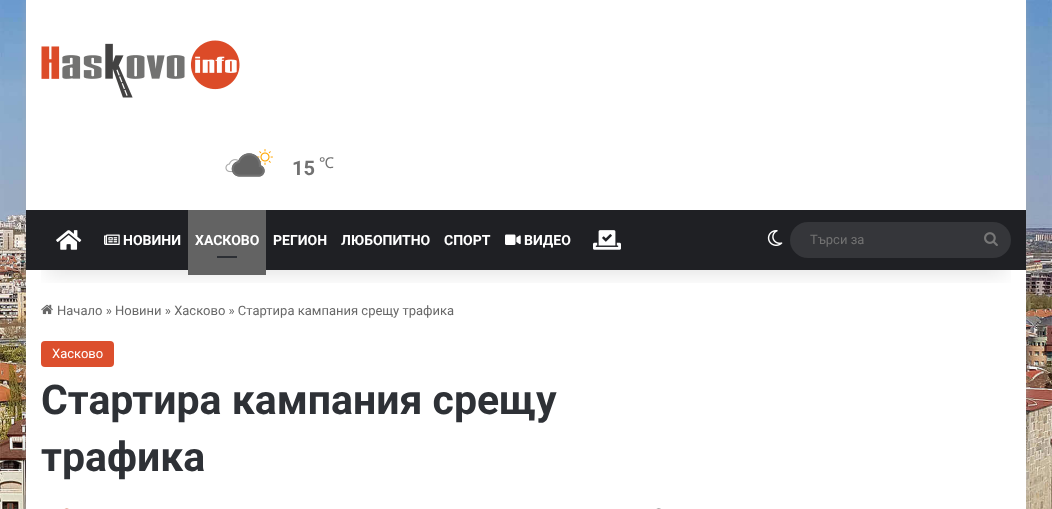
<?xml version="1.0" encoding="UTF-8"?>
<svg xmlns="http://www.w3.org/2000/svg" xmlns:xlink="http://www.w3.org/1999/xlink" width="1052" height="509">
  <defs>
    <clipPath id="clip1"><rect x="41" y="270" width="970" height="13" /></clipPath>
  </defs>
  <rect width="100%" height="100%" fill="#ffffff" />
  <image x="0" y="0" width="1052" height="509" xlink:href="image1.png" />
  <rect x="26" y="1" width="1000" height="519" fill="#ababab" fill-opacity="0.5" filter="blur(3.5px)" />
  <rect x="26" width="1000" height="509" fill="#ffffff" />
  <image x="41" y="304" width="12" height="11" xlink:href="image13.png" />
  <g clip-path="url(#clip1)">
    <rect x="46" y="45" width="960" height="230" fill="#000000" fill-opacity="0.1" filter="blur(10px)" />
  </g>
  <image x="41" y="40" width="199" height="58" xlink:href="image2.png" />
  <image x="257" y="149" width="16" height="16" xlink:href="image3.png" />
  <image x="225" y="159" width="14" height="14" xlink:href="image6.png" />
  <image x="231" y="153" width="34" height="24" xlink:href="image4.png" />
  <image x="231" y="153" width="34" height="24" xlink:href="image5.png" />
  <rect x="26" y="210" width="1000" height="60" fill="#1f2024" />
  <image x="56" y="230" width="26" height="20" xlink:href="image7.png" />
  <image x="104" y="234" width="16" height="11" xlink:href="image8.png" />
  <rect x="188" y="210" width="78" height="65" fill="#636363" />
  <rect x="217" y="256" width="20" height="2" fill="#2c2f34" />
  <image x="505" y="234" width="16" height="11" xlink:href="image9.png" />
  <image x="593" y="230" width="28" height="20" xlink:href="image10.png" />
  <image x="767" y="230" width="16" height="16" xlink:href="image11.png" />
  <rect x="790" y="222" width="221" height="36" rx="18" fill="#35363a" />
  <image x="984" y="232" width="14" height="14" xlink:href="image12.png" />
  <rect x="41" y="341" width="73" height="26" rx="4" fill="#dc4f2d" />
  <image x="64" y="508" width="5" height="1" xlink:href="image14.png" />
  <image x="656" y="508" width="5" height="1" xlink:href="image15.png" />
  <text x="292" y="175" style="font-family: Roboto; font-size: 20px; font-weight: bold; fill: #727272">15</text>
  <text x="319" y="168" style="font-family: Noto Sans; font-size: 15px; fill: #727272">℃</text>
  <text x="123" y="245" style="font-family: Roboto; font-size: 14px; font-weight: bold; fill: #ffffff">НОВИНИ</text>
  <text x="195" y="245" style="font-family: Roboto; font-size: 14px; font-weight: bold; fill: #ffffff">ХАСКОВО</text>
  <text x="273" y="245" style="font-family: Roboto; font-size: 14px; font-weight: bold; fill: #ffffff">РЕГИОН</text>
  <text x="341" y="245" style="font-family: Roboto; font-size: 14px; font-weight: bold; fill: #ffffff">ЛЮБОПИТНО</text>
  <text x="444" y="245" style="font-family: Roboto; font-size: 14px; font-weight: bold; fill: #ffffff">СПОРТ</text>
  <text x="524" y="245" style="font-family: Roboto; font-size: 14px; font-weight: bold; fill: #ffffff">ВИДЕО</text>
  <text x="810" y="244" style="font-family: Roboto; font-size: 13px; fill: #727272">Търси за</text>
  <text x="57" y="315" style="font-family: Roboto; font-size: 13px; fill: #686868">Начало » Новини » Хасково » Стартира кампания срещу трафика</text>
  <text x="52" y="358" style="font-family: Roboto; font-size: 13px; fill: #ffffff">Хасково</text>
  <text x="41" y="414" style="font-family: Roboto; font-size: 41px; font-weight: bold; fill: #2e3136">Стартира кампания срещу</text>
  <text x="41" y="471" style="font-family: Roboto; font-size: 41px; font-weight: bold; fill: #2e3136">трафика</text>
</svg>
